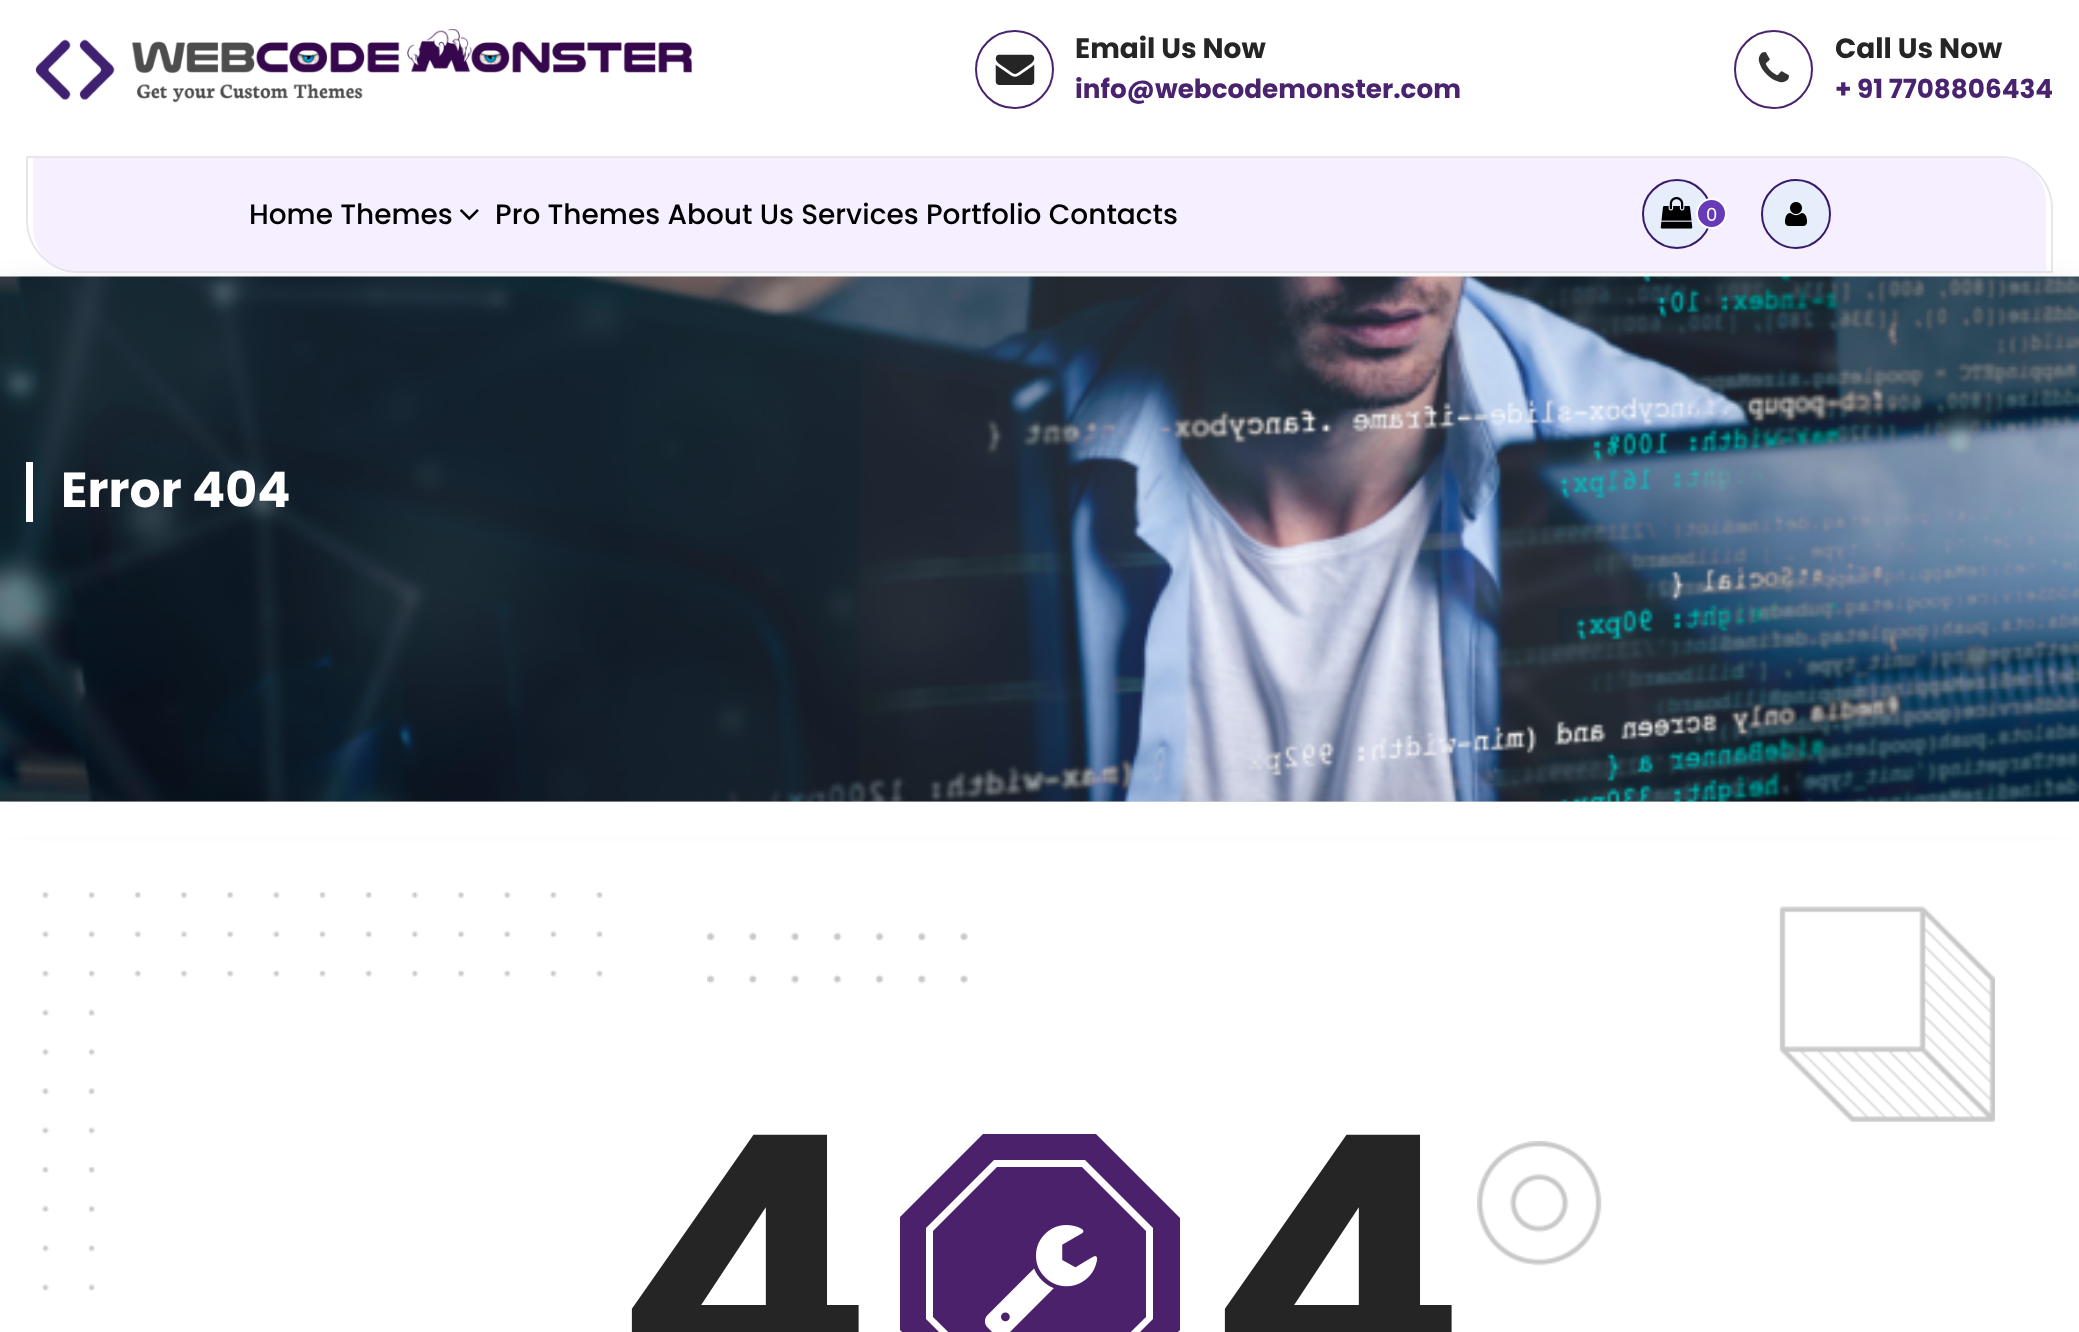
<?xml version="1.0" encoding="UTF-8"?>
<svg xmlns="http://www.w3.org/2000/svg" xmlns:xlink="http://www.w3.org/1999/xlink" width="2079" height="1332">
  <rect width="100%" height="100%" fill="#ffffff" />
  <image x="35" y="29" width="658" height="74" xlink:href="image1.png" />
  <circle cx="1014.5" cy="69.5" r="38.5" fill="none" stroke="#49236e" stroke-width="2" />
  <image x="995" y="54" width="40" height="31" xlink:href="image2.png" />
  <circle cx="1773.5" cy="69.5" r="38.5" fill="none" stroke="#49236e" stroke-width="2" />
  <image x="1758" y="52" width="31" height="31" xlink:href="image3.png" />
  <rect x="7" y="294" width="2065" height="511" fill="#000000" fill-opacity="0.25" filter="blur(17.5px)" />
  <path d="M 27 157 h 1973 c 28.5 0 52 23.5 52 52 v 63 h -1973 c -28.5 0 -52 -23.5 -52 -52 z" fill="none" stroke="#cfc8d8" stroke-opacity="0.47" stroke-width="2" />
  <path d="M 33 158 h 1969 c 24.5 0 44 19.5 44 44 v 69 h -1969 c -24.5 0 -44 -19.5 -44 -44 z" fill="#f5efff" />
  <image x="460" y="209" width="19" height="12" xlink:href="image4.png" />
  <circle cx="1677" cy="214" r="34" fill="#e6eefb" stroke="#38186b" stroke-width="2" />
  <image x="1660" y="197" width="33" height="32" xlink:href="image5.png" />
  <circle cx="1711.5" cy="213.5" r="14.5" fill="#673ab7" stroke="#ffffff" stroke-width="2" />
  <circle cx="1796" cy="214" r="34" fill="#e6eefb" stroke="#38186b" stroke-width="2" />
  <image x="1785" y="202" width="22" height="24" xlink:href="image6.png" />
  <image x="0" y="276" width="2079" height="526" xlink:href="image7.png" />
  <rect x="26" y="462" width="7" height="60" fill="#ffffff" />
  <rect y="802" width="2079" height="34" fill="#ffffff" />
  <image x="42" y="892" width="561" height="399" xlink:href="image8.png" />
  <image x="707" y="932" width="261" height="52" xlink:href="image9.png" />
  <image x="1779" y="906" width="216" height="216" xlink:href="image10.png" />
  <path d="M 900 1217 l 83 -83 h 113 l 84 84 v 112 l -84 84 h -112 l -84 -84 z" fill="#4b216b" />
  <path d="M 926 1228 l 68 -68 h 91 l 68 68 v 91 l -68 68 h -91 l -68 -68 z" fill="#ffffff" />
  <path d="M 933 1231 l 64 -64 h 85 l 64 64 v 86 l -64 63 h -85 l -64 -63 z" fill="#4b216b" />
  <image x="984" y="1225" width="114" height="107" xlink:href="image11.png" />
  <image x="1477" y="1141" width="125" height="125" xlink:href="image12.png" />
  <text x="1075" y="58" style="font-family: Poppins; font-size: 28px; font-weight: bold; fill: #252525">Email Us Now</text>
  <text x="1075" y="98" style="font-family: Poppins; font-size: 26.25px; font-weight: bold; fill: #49236e">info@webcodemonster.com</text>
  <text x="1835" y="58" style="font-family: Poppins; font-size: 28px; font-weight: bold; fill: #252525">Call Us Now</text>
  <text x="1835" y="98" style="font-family: Poppins; font-size: 26.25px; font-weight: bold; fill: #49236e">+ 91 7708806434</text>
  <text x="249" y="224" style="font-family: Poppins; font-size: 28px; font-weight: 500; fill: #000000">Home Themes</text>
  <text x="495" y="224" style="font-family: Poppins; font-size: 28px; font-weight: 500; fill: #000000">Pro Themes About Us Services Portfolio Contacts</text>
  <text x="1706" y="221" style="font-family: Poppins; font-size: 18px; fill: #ffffff">0</text>
  <text x="61" y="507" style="font-family: Poppins; font-size: 49px; font-weight: bold; fill: #ffffff">Error 404</text>
  <text x="613" y="1412" style="font-family: Poppins; font-size: 385px; font-weight: bold; fill: #252525">4</text>
  <text x="1206" y="1412" style="font-family: Poppins; font-size: 385px; font-weight: bold; fill: #252525">4</text>
</svg>
